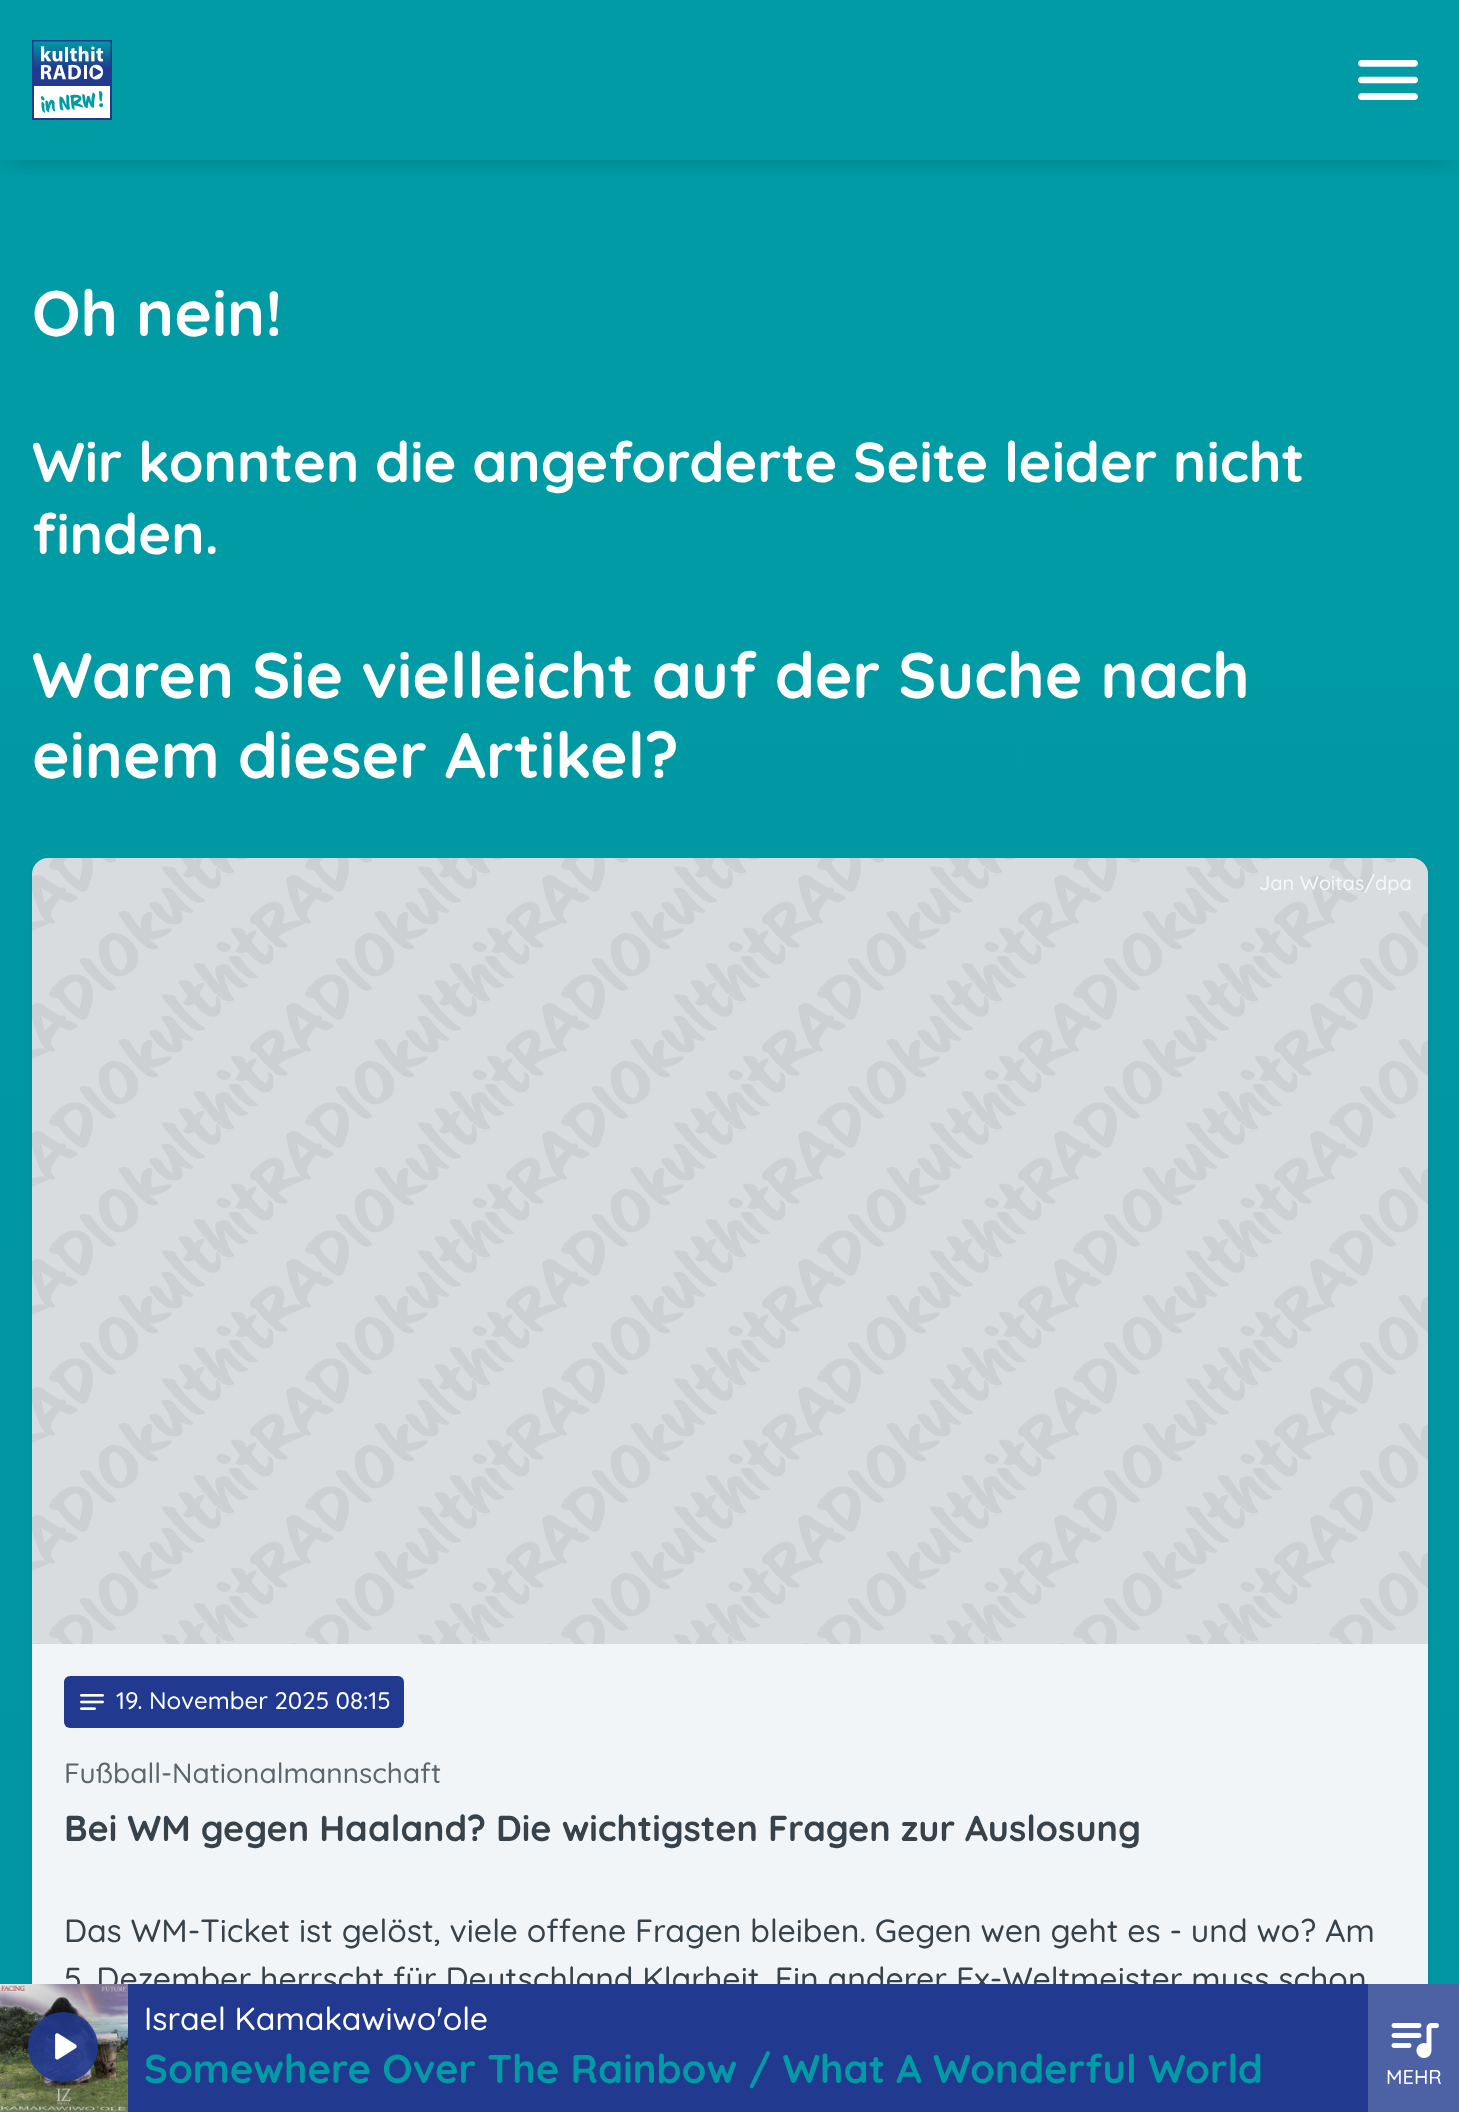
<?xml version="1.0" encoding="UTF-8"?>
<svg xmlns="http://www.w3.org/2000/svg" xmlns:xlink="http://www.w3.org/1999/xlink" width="1459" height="2112">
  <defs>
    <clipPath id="clip1"><rect x="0" y="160" width="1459" height="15" /></clipPath>
    <linearGradient id="g1" gradientUnits="userSpaceOnUse" x1="730" y1="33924" x2="730" y2="160"><stop offset="0" stop-color="#213a8f" /><stop offset="1" stop-color="#009aa3" /></linearGradient>
  </defs>
  <rect width="100%" height="100%" fill="#009ba4" />
  <g clip-path="url(#clip1)">
    <rect x="10" y="10" width="1440" height="140" fill="#000000" fill-opacity="0.4" filter="blur(15px)" />
  </g>
  <image x="32" y="40" width="80" height="80" xlink:href="image1.png" />
  <image x="1358" y="60" width="60" height="40" xlink:href="image2.png" />
  <rect y="688" width="1459" height="1296" fill="url(#g1)" />
  <rect x="32" y="862" width="1396" height="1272" rx="16" fill="#1a374d" fill-opacity="0.15" filter="blur(2px)" />
  <rect x="32" y="858" width="1396" height="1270" rx="16" fill="#f1f5f8" />
  <path d="M 48 858 h 1364 c 9 0 16 7 16 16 v 770 h -1396 v -770 c 0 -9 7 -16 16 -16 z" fill="#000000" fill-opacity="0.1" />
  <image x="32" y="858" width="1396" height="786" xlink:href="image3.png" />
  <rect x="64" y="1676" width="340" height="52" rx="6" fill="#213a8f" />
  <image x="80" y="1694" width="24" height="16" xlink:href="image4.png" />
  <rect x="1368" y="1984" width="91" height="128" fill="#4d61a5" />
  <image x="1391" y="2023" width="48" height="35" xlink:href="image7.png" />
  <text x="32" y="336" style="font-family: Quicksand; font-size: 64px; font-weight: 300; fill: #ffffff">Oh nein!</text>
  <text x="32" y="482" style="font-family: Quicksand; font-size: 56px; font-weight: 300; fill: #ffffff">Wir konnten die angeforderte Seite leider nicht</text>
  <text x="32" y="554" style="font-family: Quicksand; font-size: 56px; font-weight: 300; fill: #ffffff">finden.</text>
  <text x="32" y="698" style="font-family: Quicksand; font-size: 64px; font-weight: 300; fill: #ffffff">Waren Sie vielleicht auf der Suche nach</text>
  <text x="32" y="778" style="font-family: Quicksand; font-size: 64px; font-weight: 300; fill: #ffffff">einem dieser Artikel?</text>
  <text x="1259" y="890" style="font-family: 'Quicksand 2'; font-size: 20px; font-weight: 300; fill: #f7f7f8">Jan Woitas/dpa</text>
  <text x="116" y="1709" style="font-family: 'Quicksand 2'; font-size: 24px; font-weight: 300; fill: #ffffff">19. November 2025 08:15</text>
  <text x="64" y="1783" style="font-family: 'Quicksand 2'; font-size: 28px; font-weight: 300; fill: #5c666d">Fußball-Nationalmannschaft</text>
  <text x="64" y="1841" style="font-family: Quicksand; font-size: 36px; font-weight: 300; fill: #37424a">Bei WM gegen Haaland? Die wichtigsten Fragen zur Auslosung</text>
  <text x="64" y="1942" style="font-family: 'Quicksand 2'; font-size: 32px; font-weight: 300; fill: #37424a">Das WM-Ticket ist gelöst, viele offene Fragen bleiben. Gegen wen geht es - und wo? Am</text>
  <text x="64" y="1990" style="font-family: 'Quicksand 2'; font-size: 32px; font-weight: 300; fill: #37424a">5. Dezember herrscht für Deutschland Klarheit. Ein anderer Ex-Weltmeister muss schon</text>
  <rect x="128" y="1984" width="1240" height="128" fill="#213a8f" />
  <image x="0" y="1984" width="128" height="128" xlink:href="image5.png" />
  <text x="144" y="2030" style="font-family: 'Quicksand 2'; font-size: 32px; font-weight: 300; fill: #ffffff">Israel Kamakawiwo'ole</text>
  <text x="144" y="2083" style="font-family: Quicksand; font-size: 40px; font-weight: 300; fill: #009ba4">Somewhere Over The Rainbow / What A Wonderful World</text>
  <circle cx="63" cy="2047" r="35" fill="#213a8f" fill-opacity="0.9" />
  <image x="55" y="2033" width="22" height="27" xlink:href="image6.png" />
  <text x="1386" y="2084" style="font-family: 'Quicksand 2'; font-size: 20px; font-weight: 300; fill: #ffffff">MEHR</text>
</svg>
